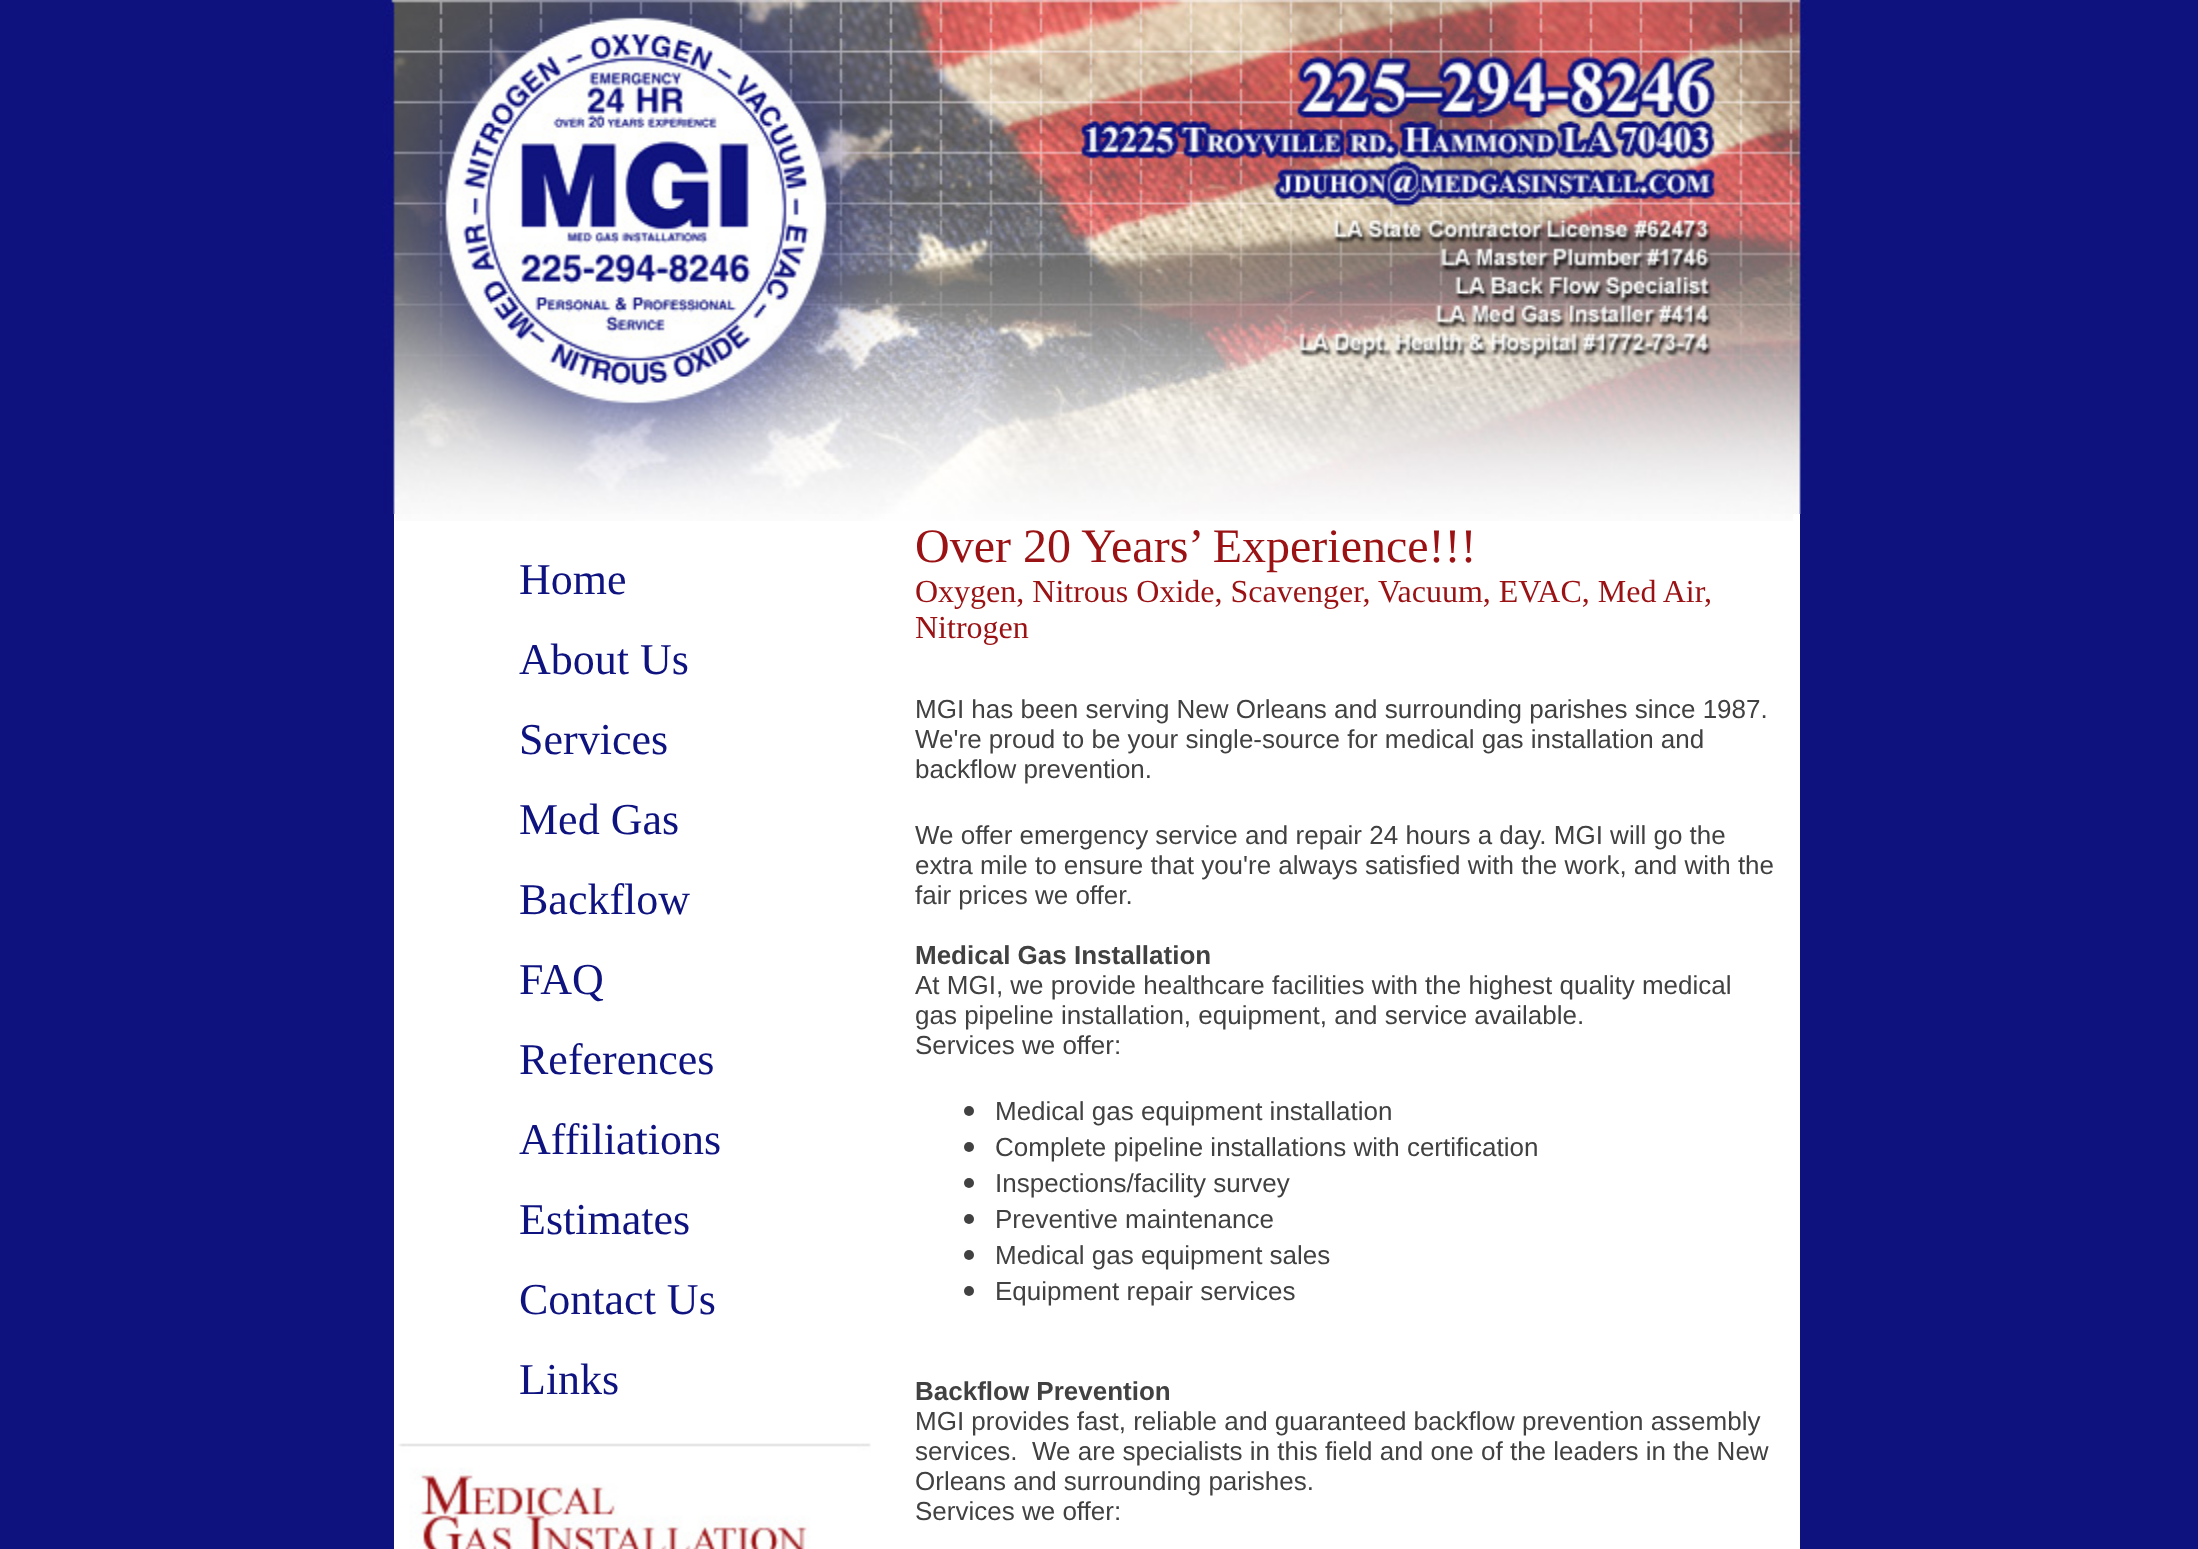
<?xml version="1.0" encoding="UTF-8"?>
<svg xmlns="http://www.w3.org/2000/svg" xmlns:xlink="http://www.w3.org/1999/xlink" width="2198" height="1549">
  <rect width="100%" height="100%" fill="#0e127e" />
  <image x="382" y="0" width="1424" height="514" xlink:href="image1.png" />
  <rect x="394" y="514" width="1406" height="1035" fill="#ffffff" />
  <image x="395" y="514" width="1398" height="7" xlink:href="image2.png" />
  <image x="398" y="1443" width="473" height="106" xlink:href="image3.png" />
  <circle cx="969" cy="1111" r="5" fill="#414141" />
  <circle cx="969" cy="1147" r="5" fill="#414141" />
  <circle cx="969" cy="1183" r="5" fill="#414141" />
  <circle cx="969" cy="1219" r="5" fill="#414141" />
  <circle cx="969" cy="1255" r="5" fill="#414141" />
  <circle cx="969" cy="1291" r="5" fill="#414141" />
  <text x="519" y="594" style="font-family: Liberation Serif; font-size: 44px; fill: #0f137f">Home</text>
  <text x="519" y="674" style="font-family: Liberation Serif; font-size: 44px; fill: #0f137f">About Us</text>
  <text x="519" y="754" style="font-family: Liberation Serif; font-size: 44px; fill: #0f137f">Services</text>
  <text x="519" y="834" style="font-family: Liberation Serif; font-size: 44px; fill: #0f137f">Med Gas</text>
  <text x="519" y="914" style="font-family: Liberation Serif; font-size: 44px; fill: #0f137f">Backflow</text>
  <text x="519" y="994" style="font-family: Liberation Serif; font-size: 44px; fill: #0f137f">FAQ</text>
  <text x="519" y="1074" style="font-family: Liberation Serif; font-size: 44px; fill: #0f137f">References</text>
  <text x="519" y="1154" style="font-family: Liberation Serif; font-size: 44px; fill: #0f137f">Affiliations</text>
  <text x="519" y="1234" style="font-family: Liberation Serif; font-size: 44px; fill: #0f137f">Estimates</text>
  <text x="519" y="1314" style="font-family: Liberation Serif; font-size: 44px; fill: #0f137f">Contact Us</text>
  <text x="519" y="1394" style="font-family: Liberation Serif; font-size: 44px; fill: #0f137f">Links</text>
  <text x="915" y="562" style="font-family: Liberation Serif; font-size: 48px; fill: #9a1214">Over 20 Years’ Experience!!!</text>
  <text x="915" y="602" style="font-family: Liberation Serif; font-size: 32px; fill: #9a1214">Oxygen, Nitrous Oxide, Scavenger, Vacuum, EVAC, Med Air,</text>
  <text x="915" y="638" style="font-family: Liberation Serif; font-size: 32px; fill: #9a1214">Nitrogen</text>
  <text x="915" y="718" style="font-family: Liberation Sans; font-size: 26px; fill: #414141">MGI has been serving New Orleans and surrounding parishes since 1987.</text>
  <text x="915" y="748" style="font-family: Liberation Sans; font-size: 26px; fill: #414141">We're proud to be your single-source for medical gas installation and</text>
  <text x="915" y="778" style="font-family: Liberation Sans; font-size: 26px; fill: #414141">backflow prevention.</text>
  <text x="915" y="844" style="font-family: Liberation Sans; font-size: 26px; fill: #414141">We offer emergency service and repair 24 hours a day. MGI will go the</text>
  <text x="915" y="874" style="font-family: Liberation Sans; font-size: 26px; fill: #414141">extra mile to ensure that you're always satisfied with the work, and with the</text>
  <text x="915" y="904" style="font-family: Liberation Sans; font-size: 26px; fill: #414141">fair prices we offer.</text>
  <text x="915" y="964" style="font-family: Liberation Sans; font-size: 26px; font-weight: bold; fill: #414141">Medical Gas Installation</text>
  <text x="915" y="994" style="font-family: Liberation Sans; font-size: 26px; fill: #414141">At MGI, we provide healthcare facilities with the highest quality medical</text>
  <text x="915" y="1024" style="font-family: Liberation Sans; font-size: 26px; fill: #414141">gas pipeline installation, equipment, and service available.</text>
  <text x="915" y="1054" style="font-family: Liberation Sans; font-size: 26px; fill: #414141">Services we offer:</text>
  <text x="995" y="1120" style="font-family: Liberation Sans; font-size: 26px; fill: #414141">Medical gas equipment installation</text>
  <text x="995" y="1156" style="font-family: Liberation Sans; font-size: 26px; fill: #414141">Complete pipeline installations with certification</text>
  <text x="995" y="1192" style="font-family: Liberation Sans; font-size: 26px; fill: #414141">Inspections/facility survey</text>
  <text x="995" y="1228" style="font-family: Liberation Sans; font-size: 26px; fill: #414141">Preventive maintenance</text>
  <text x="995" y="1264" style="font-family: Liberation Sans; font-size: 26px; fill: #414141">Medical gas equipment sales</text>
  <text x="995" y="1300" style="font-family: Liberation Sans; font-size: 26px; fill: #414141">Equipment repair services</text>
  <text x="915" y="1400" style="font-family: Liberation Sans; font-size: 26px; font-weight: bold; fill: #414141">Backflow Prevention</text>
  <text x="915" y="1430" style="font-family: Liberation Sans; font-size: 26px; fill: #414141">MGI provides fast, reliable and guaranteed backflow prevention assembly</text>
  <text x="915" y="1460" style="font-family: Liberation Sans; font-size: 26px; fill: #414141" xml:space="preserve">services.  We are specialists in this field and one of the leaders in the New</text>
  <text x="915" y="1490" style="font-family: Liberation Sans; font-size: 26px; fill: #414141">Orleans and surrounding parishes.</text>
  <text x="915" y="1520" style="font-family: Liberation Sans; font-size: 26px; fill: #414141">Services we offer:</text>
</svg>
